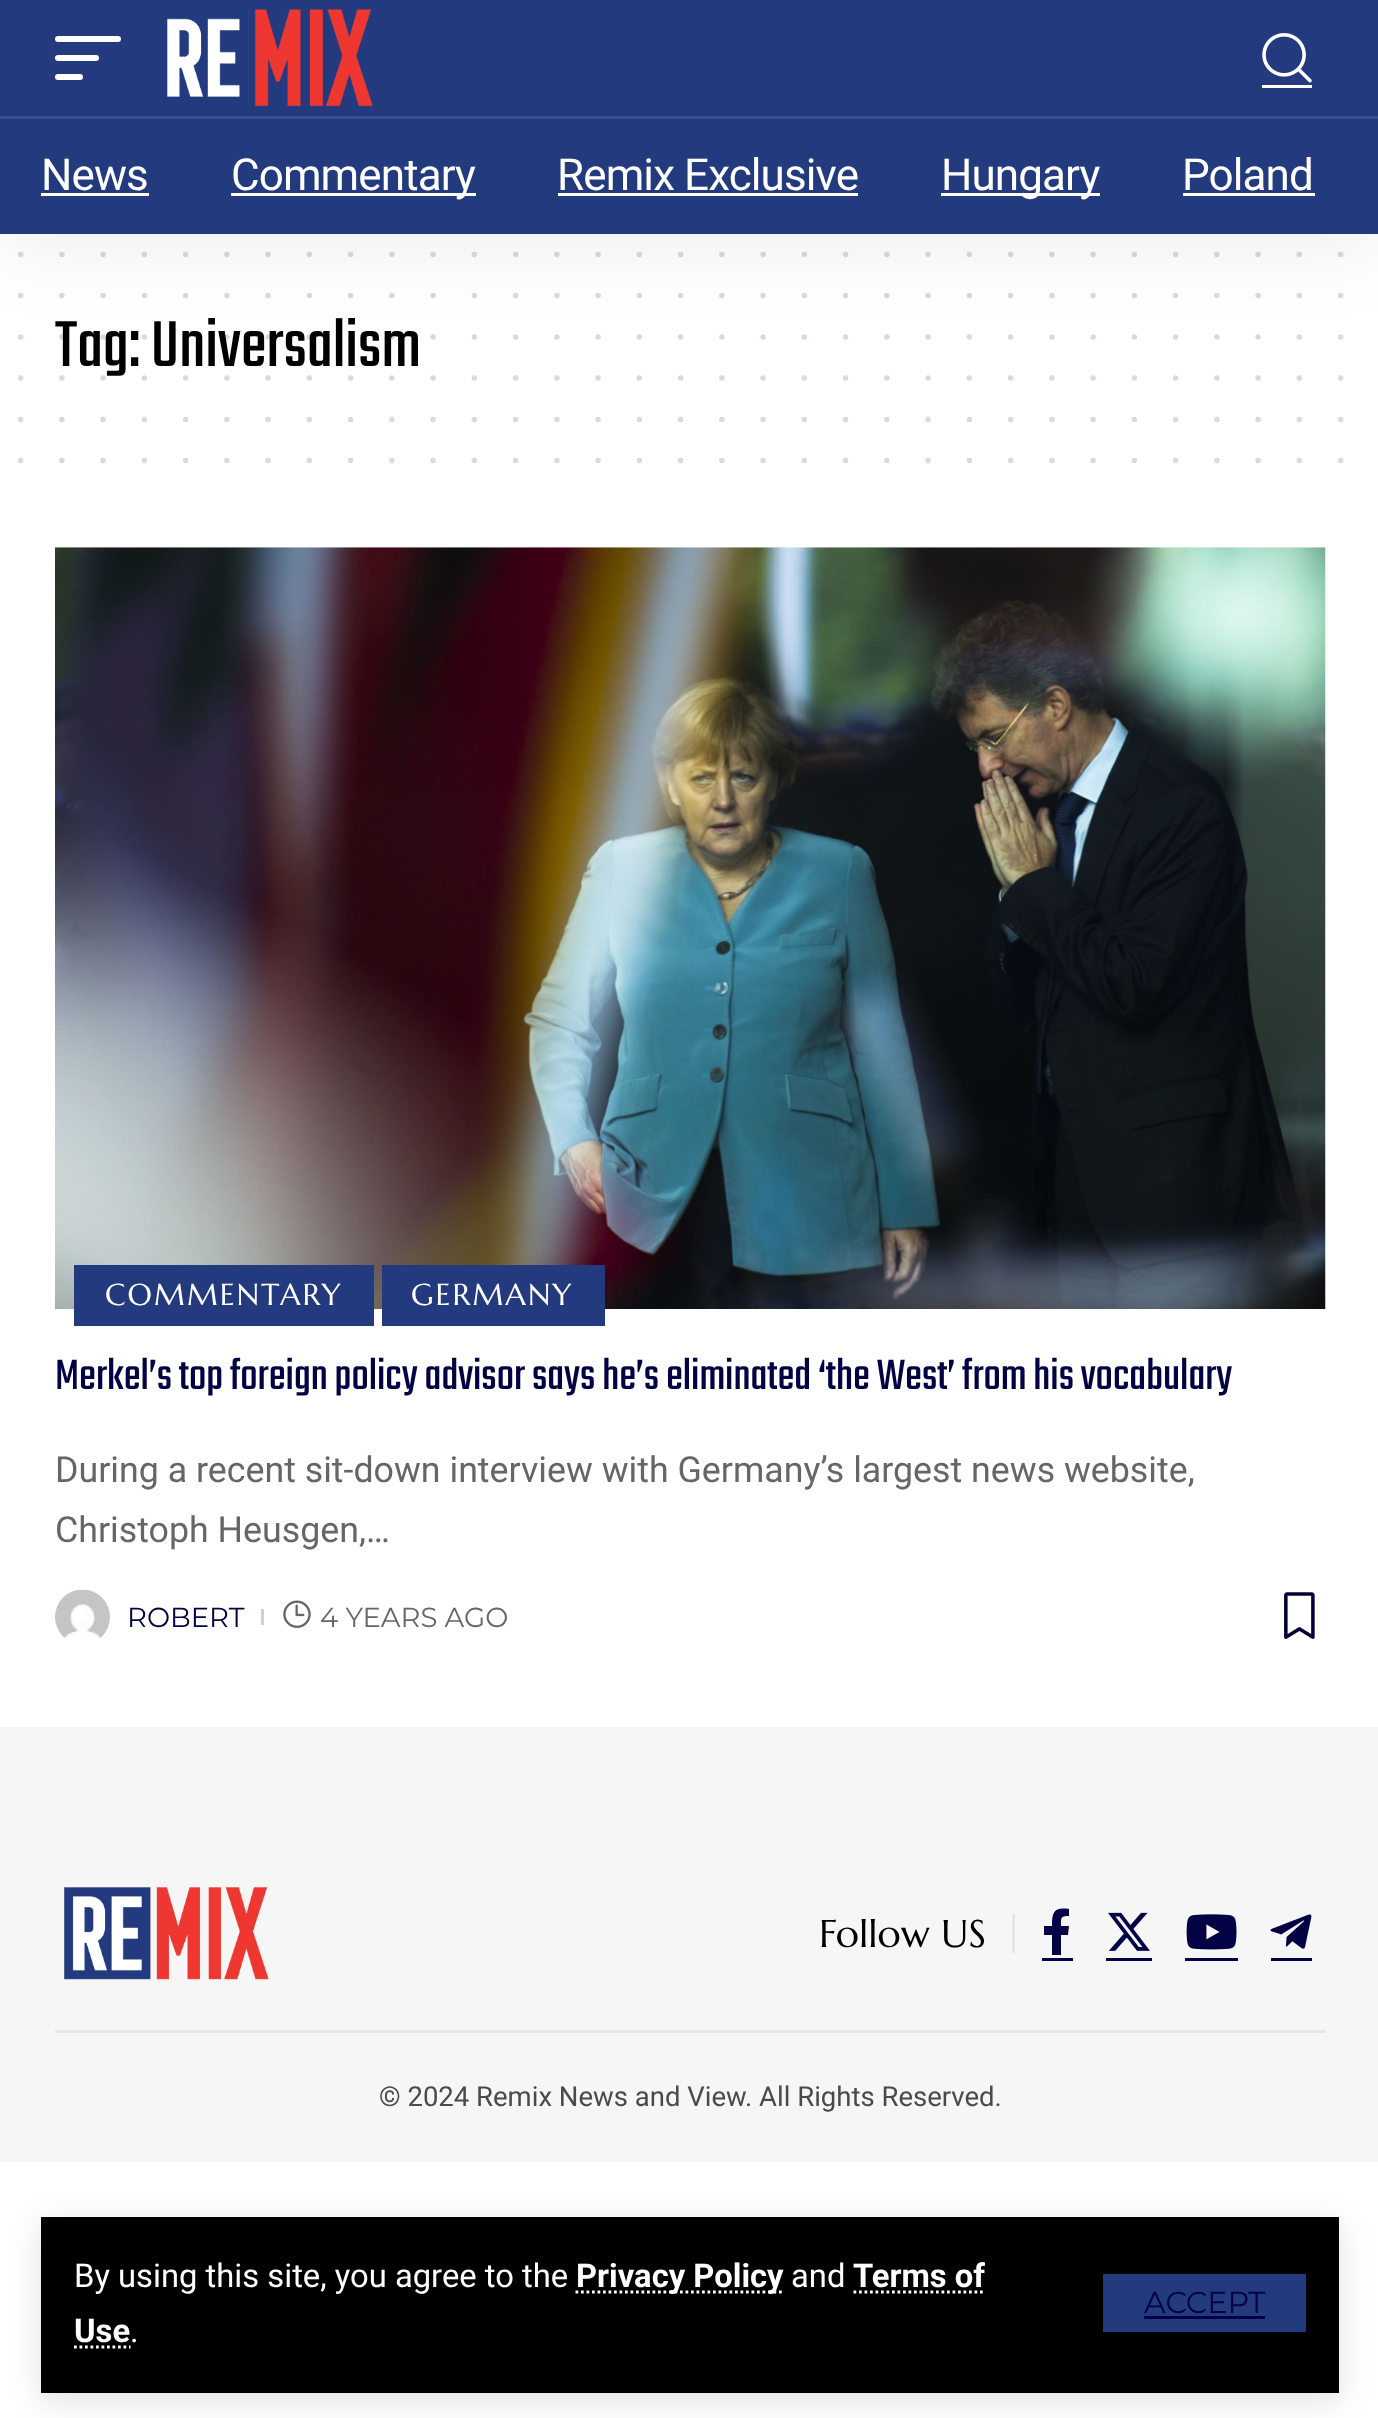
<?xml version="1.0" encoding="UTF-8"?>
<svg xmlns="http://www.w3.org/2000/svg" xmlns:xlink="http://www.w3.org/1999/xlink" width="1378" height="2418">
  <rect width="100%" height="100%" fill="#ffffff" />
  <rect x="41" y="2225" width="1298" height="176" fill="#000000" fill-opacity="0.12" filter="blur(16.5px)" />
  <rect x="41" y="2217" width="1298" height="176" fill="#000000" />
  <path d="M 575.5 2292 h 207.5" fill="none" stroke="#ffffff" stroke-width="2.8" stroke-dasharray="2.75 2.75" />
  <path d="M 853.5 2292 h 132" fill="none" stroke="#ffffff" stroke-width="2.8" stroke-dasharray="2.75 2.75" />
  <path d="M 74 2347 h 56.5" fill="none" stroke="#ffffff" stroke-width="2.8" stroke-dasharray="2.75 2.75" />
  <rect x="1103" y="2274" width="203" height="58" fill="#233b7e" />
  <rect x="1144" y="2316" width="121" height="3" fill="#020244" />
  <path d="M 20.6 254.4 h 1320.6" fill="none" stroke="#d9d9e0" stroke-width="5.5" stroke-linecap="round" stroke-dasharray="0 41.25" />
  <path d="M 20.6 295.6 h 1320.6" fill="none" stroke="#d9d9e0" stroke-width="5.5" stroke-linecap="round" stroke-dasharray="0 41.25" />
  <path d="M 20.6 419.4 h 1320.6" fill="none" stroke="#d9d9e0" stroke-width="5.5" stroke-linecap="round" stroke-dasharray="0 41.25" />
  <path d="M 20.6 460.6 h 1320.6" fill="none" stroke="#d9d9e0" stroke-width="5.5" stroke-linecap="round" stroke-dasharray="0 41.25" />
  <image x="55" y="547" width="1271" height="762" xlink:href="image3.png" />
  <rect x="74" y="1265" width="300" height="61" fill="#233b7e" />
  <rect x="382" y="1265" width="223" height="61" fill="#233b7e" />
  <image x="55" y="1589" width="55" height="49" xlink:href="image4.png" />
  <rect x="261" y="1609" width="3" height="16" fill="#d1d1d1" />
  <image x="283" y="1600" width="28" height="28" xlink:href="image5.png" />
  <image x="1284" y="1592" width="31" height="47" xlink:href="image6.png" />
  <rect y="1727" width="1378" height="435" fill="#f6f6f6" />
  <image x="64" y="1887" width="205" height="93" xlink:href="image7.png" />
  <rect x="1012" y="1914" width="3" height="39" fill="#e6e6e6" />
  <path d="M 1068 1935 l 1 -9 h -8 c 0 -8 -1 -10 8 -10 v -7 c -15 -2 -17 3 -17 17 h -8 v 9 h 8 v 20 h 9 v -20 z" fill="#020244" />
  <rect x="1042" y="1958" width="31" height="3" fill="#020244" />
  <image x="1108" y="1912" width="42" height="39" xlink:href="image8.png" />
  <rect x="1106" y="1958" width="46" height="3" fill="#020244" />
  <image x="1186" y="1914" width="51" height="36" xlink:href="image9.png" />
  <rect x="1185" y="1958" width="53" height="3" fill="#020244" />
  <image x="1270" y="1914" width="42" height="35" xlink:href="image10.png" />
  <rect x="1271" y="1958" width="41" height="3" fill="#020244" />
  <rect x="55" y="2030" width="1271" height="3" fill="#e6e6e6" />
  <text x="74" y="2287" style="font-family: Roboto; font-size: 32.75px; fill: #ffffff">By using this site, you agree to the</text>
  <text x="576" y="2287" style="font-family: Roboto; font-size: 32.75px; font-weight: bold; fill: #ffffff">Privacy Policy</text>
  <text x="791" y="2287" style="font-family: Roboto; font-size: 32.75px; fill: #ffffff">and</text>
  <text x="853" y="2287" style="font-family: Roboto; font-size: 32.75px; font-weight: bold; fill: #ffffff">Terms of</text>
  <text x="74" y="2342" style="font-family: Roboto; font-size: 32.75px; font-weight: bold; fill: #ffffff">Use</text>
  <text x="130" y="2342" style="font-family: Roboto; font-size: 32.75px; fill: #ffffff">.</text>
  <text x="1144" y="2313" style="font-family: Montserrat; font-size: 30.25px; fill: #020244">ACCEPT</text>
  <text x="55" y="366" style="font-family: Teko; font-size: 71.5px; font-weight: 300; fill: #000000">Tag: Universalism</text>
  <path d="M 20.6 336.9 h 1320.6" fill="none" stroke="#000032" stroke-opacity="0.15" stroke-width="5.5" stroke-linecap="round" stroke-dasharray="0 41.25" />
  <rect y="11" width="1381" height="234" fill="#000000" fill-opacity="0.07" filter="blur(41px)" />
  <rect width="1378" height="234" fill="#233b7e" />
  <text x="1182" y="190" style="font-family: Roboto; font-size: 44px; letter-spacing: -0.9px; fill: #ffffff">Poland</text>
  <rect x="1183" y="193" width="132" height="3" fill="#ffffff" />
  <rect x="941" y="193" width="159" height="3" fill="#ffffff" />
  <text x="941" y="190" style="font-family: Roboto; font-size: 44px; letter-spacing: -0.9px; fill: #ffffff">Hungary</text>
  <text x="557" y="190" style="font-family: Roboto; font-size: 44px; letter-spacing: -0.9px; fill: #ffffff">Remix Exclusive</text>
  <rect x="558" y="193" width="300" height="3" fill="#ffffff" />
  <rect x="231" y="193" width="245" height="3" fill="#ffffff" />
  <text x="231" y="190" style="font-family: Roboto; font-size: 44px; letter-spacing: -0.9px; fill: #ffffff">Commentary</text>
  <text x="41" y="190" style="font-family: Roboto; font-size: 44px; letter-spacing: -0.9px; fill: #ffffff">News</text>
  <rect x="41" y="193" width="108" height="3" fill="#ffffff" />
  <rect y="116" width="1378" height="3" fill="#394f8b" />
  <image x="1262" y="33" width="50" height="50" xlink:href="image2.png" />
  <rect x="1262" y="85" width="50" height="3" fill="#ffffff" />
  <rect x="55" y="74" width="28" height="6" rx="3" fill="#ffffff" />
  <rect x="55" y="55" width="44" height="6" rx="3" fill="#ffffff" />
  <rect x="55" y="36" width="66" height="6" rx="3" fill="#ffffff" />
  <image x="167" y="9" width="206" height="98" xlink:href="image1.png" />
  <path d="M 20.6 378.1 h 1320.6" fill="none" stroke="#d9d9e0" stroke-width="5.5" stroke-linecap="round" stroke-dasharray="0 41.25" />
  <text x="105" y="1305" style="font-family: Marcellus; font-size: 30.25px; letter-spacing: 2.1px; fill: #ffffff">COMMENTARY</text>
  <text x="411" y="1305" style="font-family: Marcellus; font-size: 30.25px; letter-spacing: 2.1px; fill: #ffffff">GERMANY</text>
  <text x="55" y="1389" style="font-family: Teko; font-size: 46.75px; font-weight: 300; fill: #020244">Merkel’s top foreign policy advisor says he’s eliminated ‘the West’ from his vocabulary</text>
  <text x="55" y="1482" style="font-family: Roboto; font-size: 35.75px; fill: #666666">During a recent sit-down interview with Germany’s largest news website,</text>
  <text x="55" y="1542" style="font-family: Roboto; font-size: 35.75px; fill: #666666">Christoph Heusgen,…</text>
  <text x="127" y="1627" style="font-family: Montserrat; font-size: 27.5px; fill: #020244">ROBERT</text>
  <text x="320" y="1627" style="font-family: Montserrat; font-size: 27.5px; fill: #666666">4 YEARS AGO</text>
  <text x="819" y="1947" style="font-family: Marcellus; font-size: 38.5px; fill: #000000">Follow US</text>
  <text x="379" y="2106" style="font-family: Roboto; font-size: 27.5px; fill: #4a4a4a">© 2024 Remix News and View. All Rights Reserved.</text>
</svg>
